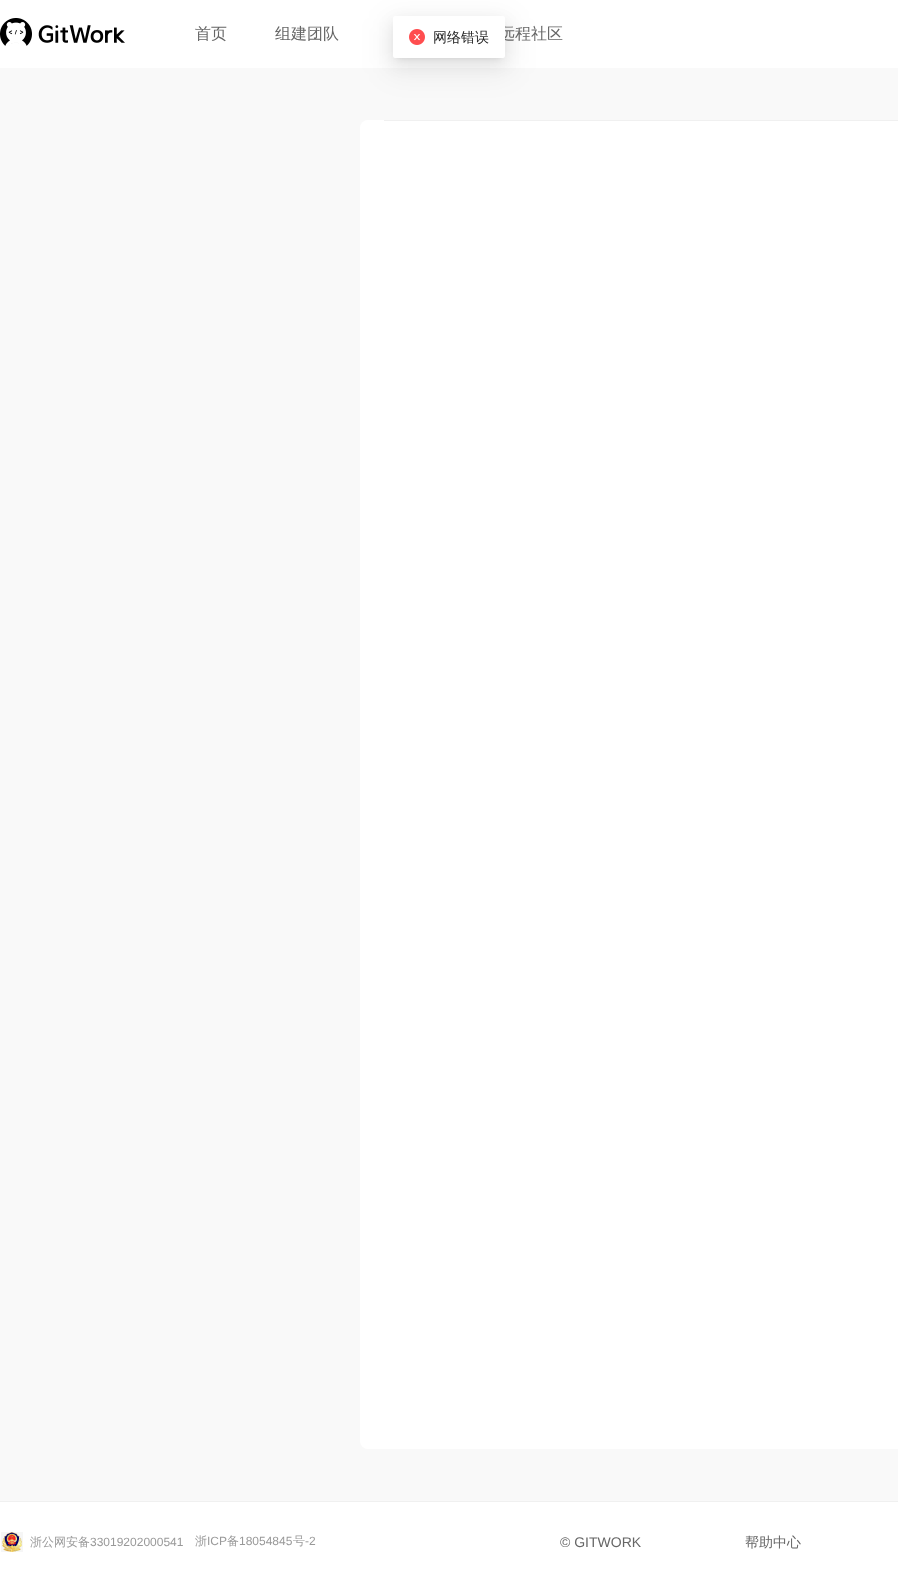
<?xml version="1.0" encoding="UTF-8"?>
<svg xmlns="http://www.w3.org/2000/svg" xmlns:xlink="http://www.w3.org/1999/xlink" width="898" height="1581">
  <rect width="100%" height="100%" fill="#ffffff" />
  <image x="0" y="18" width="125" height="28" xlink:href="image1.png" />
  <rect y="68" width="898" height="1433" fill="#f9f9f9" />
  <rect x="360" y="120" width="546" height="1329" rx="8" fill="#ffffff" />
  <rect x="384" y="120" width="514" height="1" fill="#f0f0f0" />
  <rect y="1501" width="898" height="1" fill="#f0f0f0" />
  <image x="1" y="1532" width="22" height="20" xlink:href="image2.png" />
  <rect x="385" y="17" width="128" height="58" rx="10" fill="#000000" fill-opacity="0.05" filter="blur(14px)" />
  <rect x="393" y="22" width="112" height="42" rx="2" fill="#000000" fill-opacity="0.08" filter="blur(8px)" />
  <rect x="397" y="23" width="104" height="34" fill="#000000" fill-opacity="0.12" filter="blur(3px)" />
  <text x="195" y="39" style="font-family: WenQuanYi Zen Hei; font-size: 16px; font-weight: 500; fill: #666666">首页</text>
  <text x="275" y="39" style="font-family: WenQuanYi Zen Hei; font-size: 16px; font-weight: 500; fill: #666666">组建团队</text>
  <text x="499" y="39" style="font-family: WenQuanYi Zen Hei; font-size: 16px; font-weight: 500; fill: #666666">远程社区</text>
  <text x="30" y="1546" style="font-family: WenQuanYi Zen Hei; font-size: 12px; font-weight: 500; fill: #999999">浙公网安备</text>
  <text x="90" y="1546" style="font-family: Liberation Sans; font-size: 12px; fill: #999999">33019202000541</text>
  <text x="195" y="1545" style="font-family: WenQuanYi Zen Hei; font-size: 12px; font-weight: 500; fill: #999999">浙</text>
  <text x="207" y="1545" style="font-family: Liberation Sans; font-size: 12px; fill: #999999">ICP</text>
  <text x="227" y="1545" style="font-family: WenQuanYi Zen Hei; font-size: 12px; font-weight: 500; fill: #999999">备</text>
  <text x="239" y="1545" style="font-family: Liberation Sans; font-size: 12px; fill: #999999">18054845</text>
  <text x="293" y="1545" style="font-family: WenQuanYi Zen Hei; font-size: 12px; font-weight: 500; fill: #999999">号</text>
  <text x="305" y="1545" style="font-family: Liberation Sans; font-size: 12px; fill: #999999">-2</text>
  <text x="560" y="1547" style="font-family: Liberation Sans; font-size: 14px; fill: #666666">© GITWORK</text>
  <text x="745" y="1547" style="font-family: WenQuanYi Zen Hei; font-size: 14px; font-weight: 500; fill: #666666">帮助中心</text>
  <rect x="393" y="16" width="112" height="42" rx="2" fill="#ffffff" />
  <image x="409" y="29" width="16" height="16" xlink:href="image3.png" />
  <text x="433" y="42" style="font-family: WenQuanYi Zen Hei; font-size: 14px; font-weight: 500; fill: #262626">网络错误</text>
</svg>
